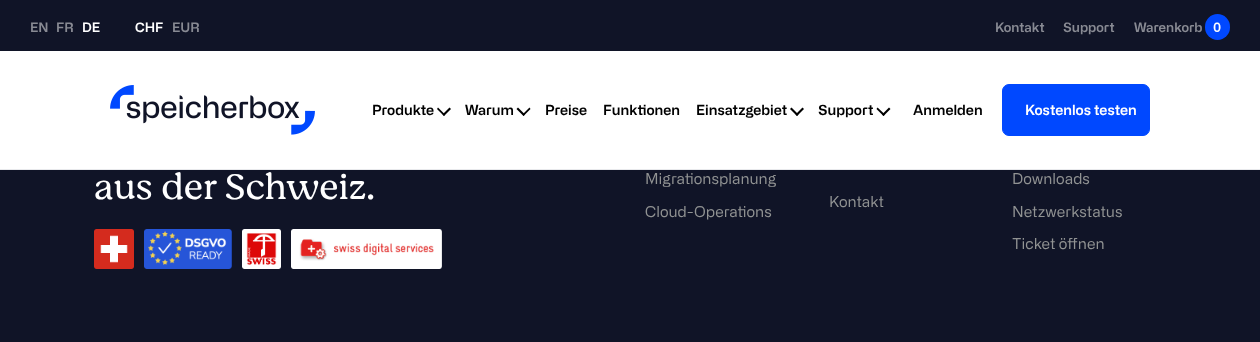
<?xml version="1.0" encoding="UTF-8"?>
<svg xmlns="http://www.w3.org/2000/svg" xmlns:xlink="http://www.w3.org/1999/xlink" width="1260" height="342">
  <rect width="100%" height="100%" fill="#101427" />
  <rect y="51" width="1260" height="118" fill="#ffffff" />
  <rect y="169" width="1260" height="1" fill="#e8e9ec" />
  <rect x="1205" y="14" width="25" height="26" rx="12.5" fill="#0048ff" />
  <image x="110" y="85" width="205" height="50" xlink:href="image1.png" />
  <path d="M 449.5 107.5 l 1.5 1.5 l -7 7 l -1.5 -1.5 z" fill="#000000" />
  <path d="M 438 107.5 l 7 7 l -1 1.5 l -7 -7 z" fill="#000000" />
  <path d="M 529.5 107.5 l 1 1.5 l -7 7 l -1 -1.5 z" fill="#000000" />
  <path d="M 518 107.5 l 7 7 l -1.5 1.5 l -7 -7 z" fill="#000000" />
  <path d="M 802.5 107.5 l 1.5 1.5 l -7 7 l -1.5 -1.5 z" fill="#000000" />
  <path d="M 791.5 107.5 l 7 7 l -1.5 1.5 l -7 -7 z" fill="#000000" />
  <path d="M 889 107.5 l 1.5 1.5 l -7 7 l -1.5 -1.5 z" fill="#000000" />
  <path d="M 877.5 107.5 l 7.5 7 l -1.5 1.5 l -7 -7 z" fill="#000000" />
  <rect x="1002.5" y="84.5" width="147" height="51" rx="6.5" fill="#0048ff" stroke="#0048ff" />
  <image x="94" y="229" width="40" height="40" xlink:href="image2.png" />
  <image x="144" y="229" width="88" height="40" xlink:href="image3.png" />
  <image x="242" y="229" width="39" height="40" xlink:href="image4.png" />
  <image x="291" y="229" width="151" height="40" xlink:href="image5.png" />
  <text x="30" y="32" style="font-family: 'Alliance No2'; font-size: 13px; font-weight: 600; fill: #888a93">EN</text>
  <text x="56" y="32" style="font-family: 'Alliance No2'; font-size: 13px; font-weight: 600; fill: #888a93">FR</text>
  <text x="82" y="32" style="font-family: 'Alliance No2'; font-size: 13px; font-weight: 600; fill: #ffffff">DE</text>
  <text x="135" y="32" style="font-family: 'Alliance No2'; font-size: 13px; font-weight: 600; fill: #ffffff">CHF</text>
  <text x="172" y="32" style="font-family: 'Alliance No2'; font-size: 13px; font-weight: 600; fill: #888a93">EUR</text>
  <text x="995" y="32" style="font-family: 'Alliance No2'; font-size: 13px; font-weight: 600; fill: #888a93">Kontakt</text>
  <text x="1063" y="32" style="font-family: 'Alliance No2'; font-size: 13px; font-weight: 600; fill: #888a93">Support</text>
  <text x="1134" y="32" style="font-family: 'Alliance No2'; font-size: 13px; font-weight: 600; fill: #888a93">Warenkorb</text>
  <text x="1213" y="32" style="font-family: 'Alliance No2'; font-size: 13px; font-weight: 600; fill: #ffffff">0</text>
  <text x="372" y="115" style="font-family: 'Alliance No2'; font-size: 14px; font-weight: 600; fill: #000000">Produkte</text>
  <text x="465" y="115" style="font-family: 'Alliance No2'; font-size: 14px; font-weight: 600; fill: #000000">Warum</text>
  <text x="545" y="115" style="font-family: 'Alliance No2'; font-size: 14px; font-weight: 600; fill: #000000">Preise</text>
  <text x="603" y="115" style="font-family: 'Alliance No2'; font-size: 14px; font-weight: 600; fill: #000000">Funktionen</text>
  <text x="696" y="115" style="font-family: 'Alliance No2'; font-size: 14px; font-weight: 600; fill: #000000">Einsatzgebiet</text>
  <text x="818" y="115" style="font-family: 'Alliance No2'; font-size: 14px; font-weight: 600; fill: #000000">Support</text>
  <text x="913" y="115" style="font-family: 'Alliance No2'; font-size: 14px; font-weight: 600; fill: #000000">Anmelden</text>
  <text x="1025" y="115" style="font-family: 'Alliance No2'; font-size: 14px; font-weight: 600; fill: #ffffff">Kostenlos testen</text>
  <text x="94" y="199" style="font-family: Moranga; font-size: 36px; font-weight: 300; fill: #ffffff">aus der Schweiz.</text>
  <text x="645" y="184" style="font-family: 'AllianceNo2'; font-size: 15px; fill: #919393">Migrationsplanung</text>
  <text x="645" y="217" style="font-family: 'AllianceNo2'; font-size: 15px; fill: #919393">Cloud-Operations</text>
  <text x="829" y="207" style="font-family: 'AllianceNo2'; font-size: 15px; fill: #919393">Kontakt</text>
  <text x="1012" y="184" style="font-family: 'AllianceNo2'; font-size: 15px; fill: #919393">Downloads</text>
  <text x="1012" y="217" style="font-family: 'AllianceNo2'; font-size: 15px; fill: #919393">Netzwerkstatus</text>
  <text x="1012" y="249" style="font-family: 'AllianceNo2'; font-size: 15px; fill: #919393">Ticket öffnen</text>
</svg>
